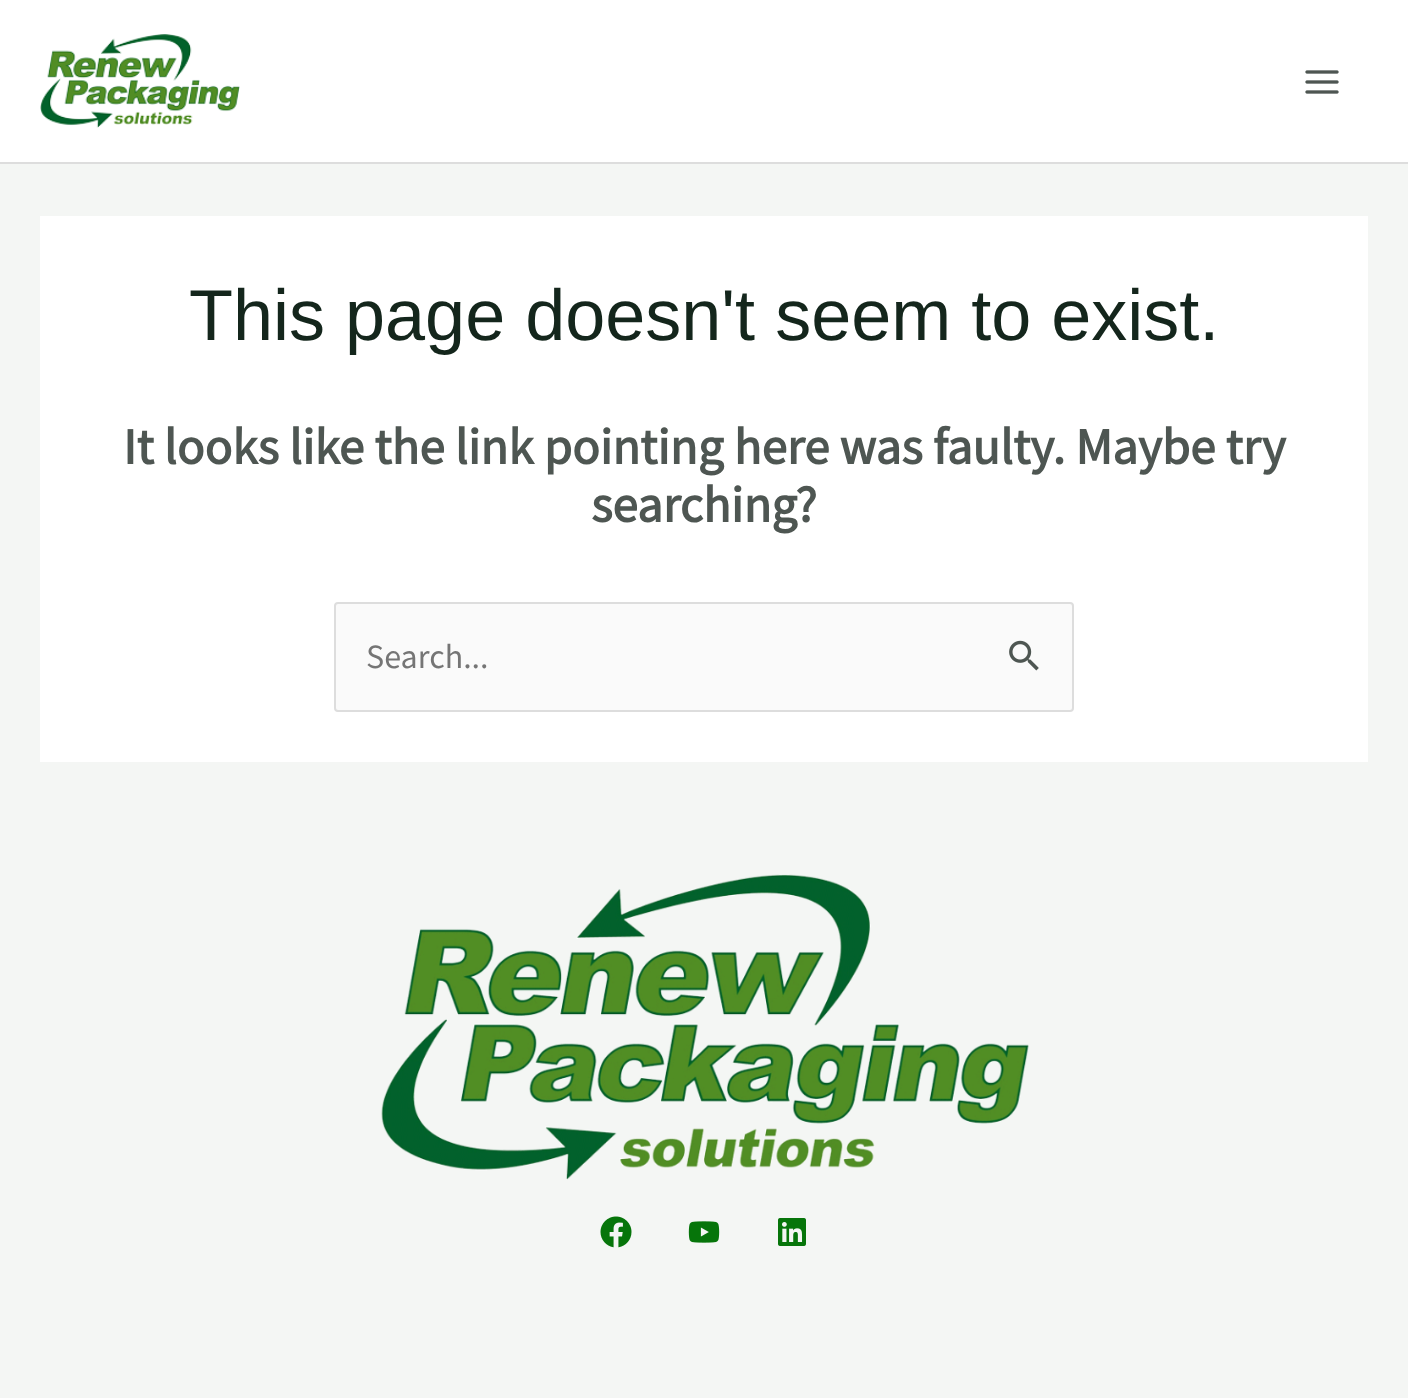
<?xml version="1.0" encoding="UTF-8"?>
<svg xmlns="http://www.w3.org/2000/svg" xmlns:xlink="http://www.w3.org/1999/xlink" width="1408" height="1398">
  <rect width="100%" height="100%" fill="#f4f6f4" />
  <rect width="1408" height="162" fill="#ffffff" />
  <rect y="162" width="1408" height="2" fill="#dddddd" />
  <image x="40" y="34" width="200" height="94" xlink:href="image1.png" />
  <image x="1305" y="70" width="34" height="24" xlink:href="image2.png" />
  <rect x="40" y="216" width="1328" height="546" fill="#ffffff" />
  <rect x="335" y="603" width="738" height="108" rx="3" fill="#fafafa" stroke="#dddddd" stroke-width="2" />
  <image x="1009" y="640" width="30" height="31" xlink:href="image3.png" />
  <image x="381" y="874" width="648" height="306" xlink:href="image4.png" />
  <image x="600" y="1216" width="32" height="32" xlink:href="image5.png" />
  <image x="688" y="1221" width="32" height="22" xlink:href="image6.png" />
  <image x="778" y="1218" width="28" height="28" xlink:href="image7.png" />
  <text x="189" y="340" style="font-family: Liberation Sans; font-size: 72px; fill: #14261c">This page doesn't seem to exist.</text>
  <text x="123" y="464" style="font-family: Source Sans Pro; font-size: 51px; font-weight: bold; fill: #4e5652">It looks like the link pointing here was faulty. Maybe try</text>
  <text x="591" y="522" style="font-family: Source Sans Pro; font-size: 51px; font-weight: bold; fill: #4e5652">searching?</text>
  <text x="366" y="668" style="font-family: Source Sans Pro; font-size: 34px; fill: #757575">Search...</text>
</svg>
